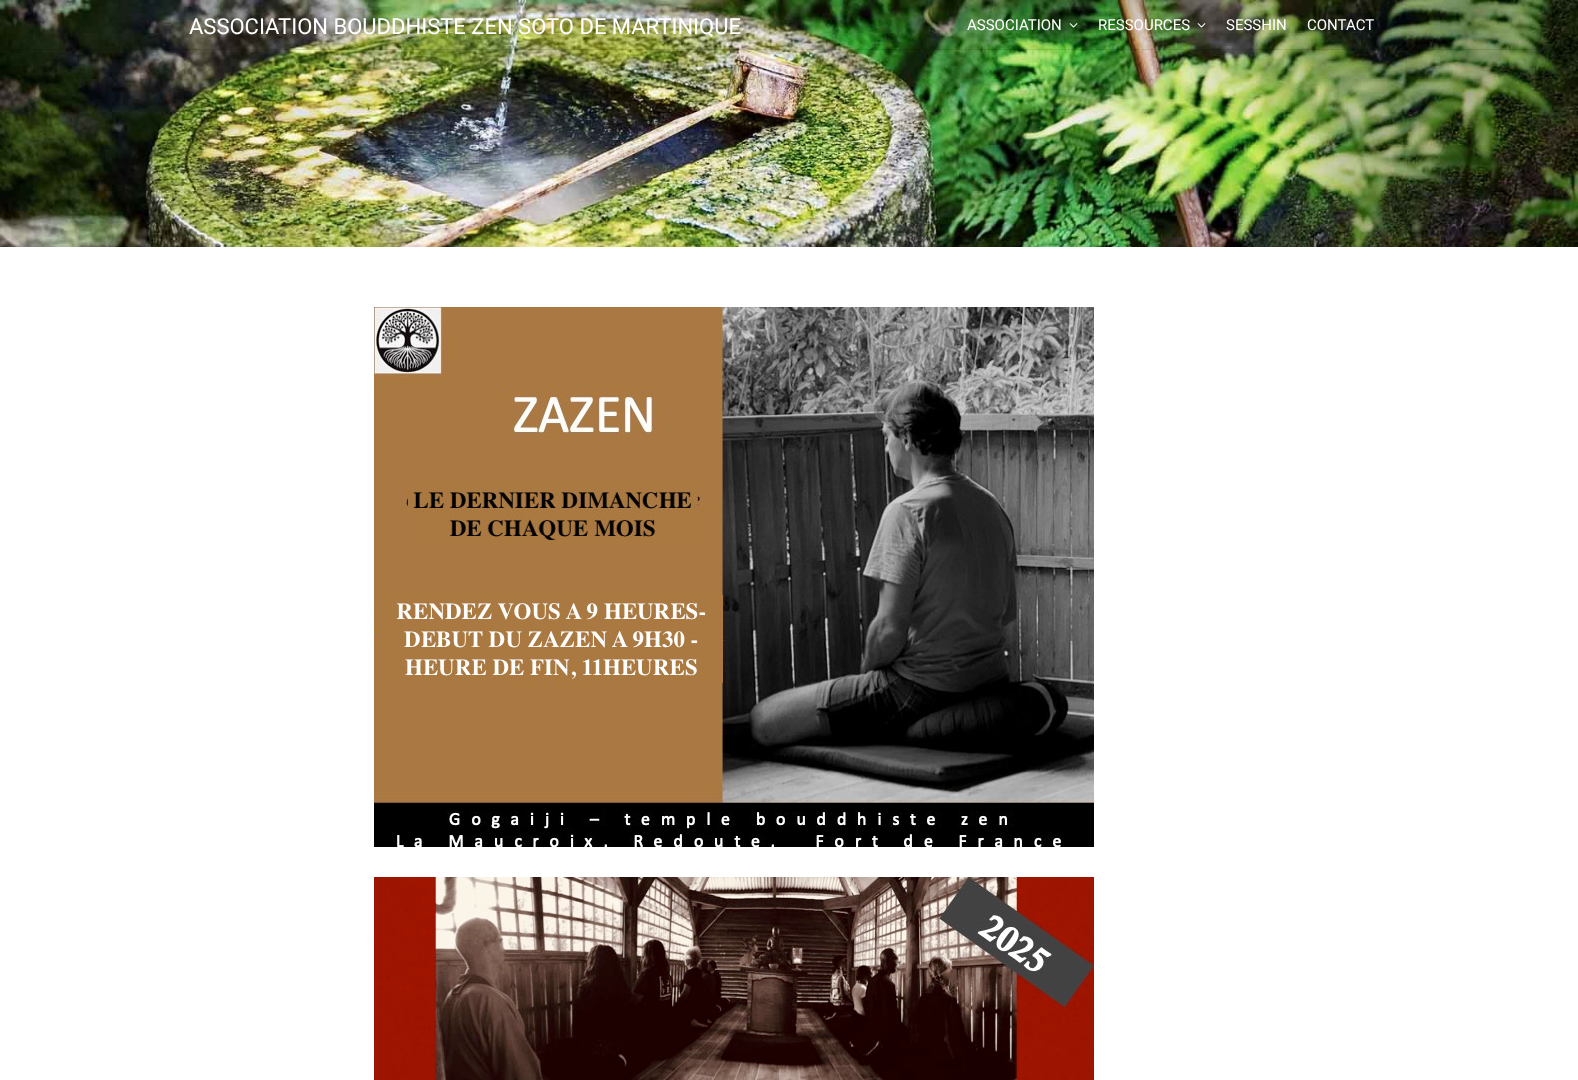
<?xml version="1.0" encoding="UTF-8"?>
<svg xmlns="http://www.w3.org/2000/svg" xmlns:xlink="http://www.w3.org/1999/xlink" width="1578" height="1080">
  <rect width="100%" height="100%" fill="#ffffff" />
  <image x="0" y="0" width="1578" height="247" xlink:href="image1.png" />
  <image x="374" y="307" width="720" height="540" xlink:href="image2.png" />
  <image x="374" y="877" width="720" height="203" xlink:href="image3.png" />
  <rect y="49" width="1578" height="1" fill="#000000" fill-opacity="0.1" />
  <image x="1069" y="23" width="9" height="5" xlink:href="image4.png" />
  <image x="1197" y="23" width="9" height="5" xlink:href="image5.png" />
  <text x="189" y="34" style="font-family: Roboto; font-size: 22px; fill: #ffffff">ASSOCIATION BOUDDHISTE ZEN SOTO DE MARTINIQUE</text>
  <text x="967" y="30" style="font-family: Roboto; font-size: 15px; fill: #ffffff">ASSOCIATION</text>
  <text x="1098" y="30" style="font-family: Roboto; font-size: 15px; fill: #ffffff">RESSOURCES</text>
  <text x="1226" y="30" style="font-family: Roboto; font-size: 15px; fill: #ffffff">SESSHIN</text>
  <text x="1307" y="30" style="font-family: Roboto; font-size: 15px; fill: #ffffff">CONTACT</text>
</svg>
